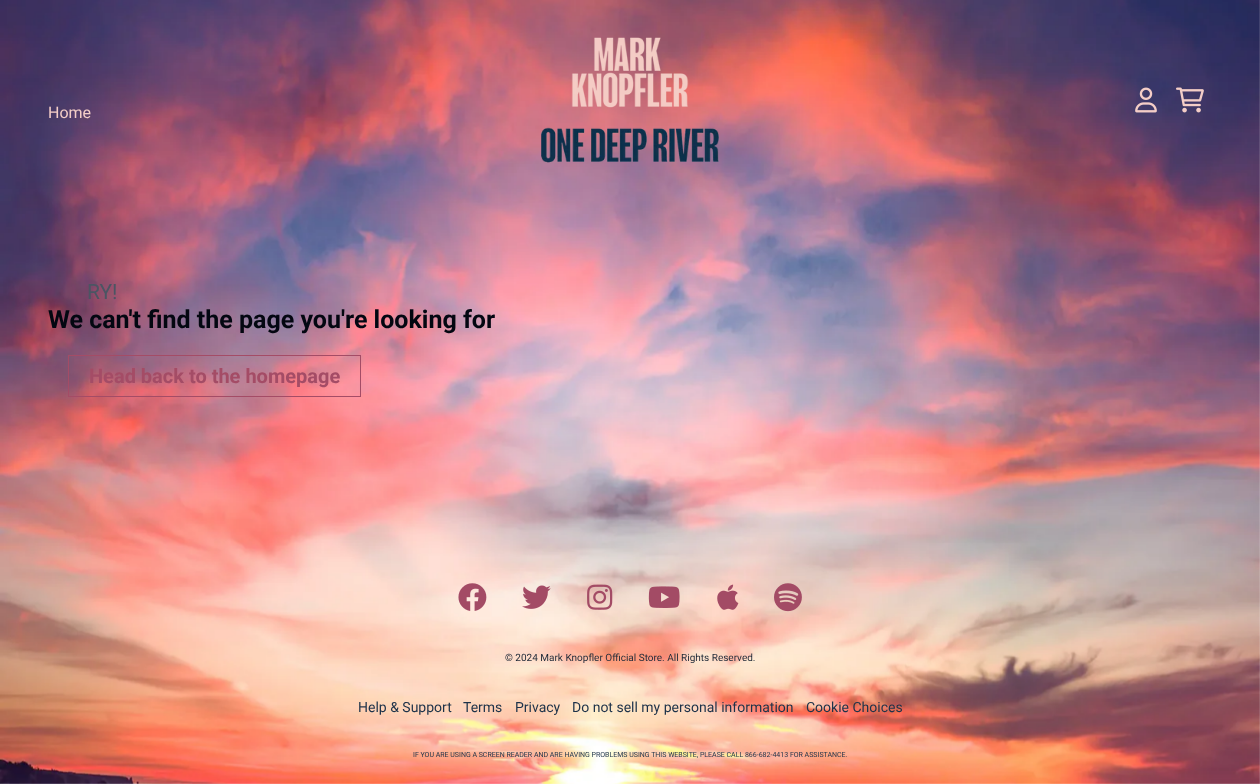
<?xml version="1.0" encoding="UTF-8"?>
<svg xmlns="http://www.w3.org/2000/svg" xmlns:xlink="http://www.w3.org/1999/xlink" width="1260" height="784">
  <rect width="100%" height="100%" fill="#ffffff" />
  <image x="0" y="0" width="1260" height="784" xlink:href="image1.png" />
  <image x="541" y="37" width="178" height="126" xlink:href="image2.png" />
  <image x="1135" y="87" width="22" height="26" xlink:href="image3.png" />
  <image x="1176" y="87" width="28" height="26" xlink:href="image4.png" />
  <rect x="68.5" y="355.5" width="292" height="41" fill="none" stroke="#a44c66" />
  <image x="458" y="583" width="29" height="28" xlink:href="image5.png" />
  <image x="522" y="585" width="29" height="24" xlink:href="image6.png" />
  <image x="587" y="584" width="26" height="26" xlink:href="image7.png" />
  <image x="648" y="586" width="32" height="22" xlink:href="image8.png" />
  <image x="717" y="584" width="22" height="26" xlink:href="image9.png" />
  <image x="774" y="583" width="28" height="29" xlink:href="image10.png" />
  <text x="48" y="118" style="font-family: Roboto; font-size: 16px; fill: #f4cec7">Home</text>
  <text x="87" y="299" style="font-family: Roboto; font-size: 21px; fill: #4b5563">RY!</text>
  <text x="48" y="328" style="font-family: Roboto; font-size: 25px; font-weight: bold; fill: #030711">We can't find the page you're looking for</text>
  <text x="89" y="383" style="font-family: Roboto; font-size: 20px; font-weight: bold; fill: #a44c66">Head back to the homepage</text>
  <text x="505" y="661" style="font-family: Roboto; font-size: 10px; fill: #1f2937">© 2024 Mark Knopfler Official Store. All Rights Reserved.</text>
  <text x="358" y="712" style="font-family: Roboto; font-size: 14px; fill: #1d3249">Help &amp; Support</text>
  <text x="463" y="712" style="font-family: Roboto; font-size: 14px; fill: #1d3249">Terms</text>
  <text x="515" y="712" style="font-family: Roboto; font-size: 14px; fill: #1d3249">Privacy</text>
  <text x="572" y="712" style="font-family: Roboto; font-size: 14px; fill: #1d3249">Do not sell my personal information</text>
  <text x="806" y="712" style="font-family: Roboto; font-size: 14px; fill: #1d3249">Cookie Choices</text>
  <text x="413" y="757" style="font-family: Roboto; font-size: 7px; fill: #1d3249">IF YOU ARE USING A SCREEN READER AND ARE HAVING PROBLEMS USING THIS WEBSITE, PLEASE CALL 866-682-4413 FOR ASSISTANCE.</text>
</svg>
